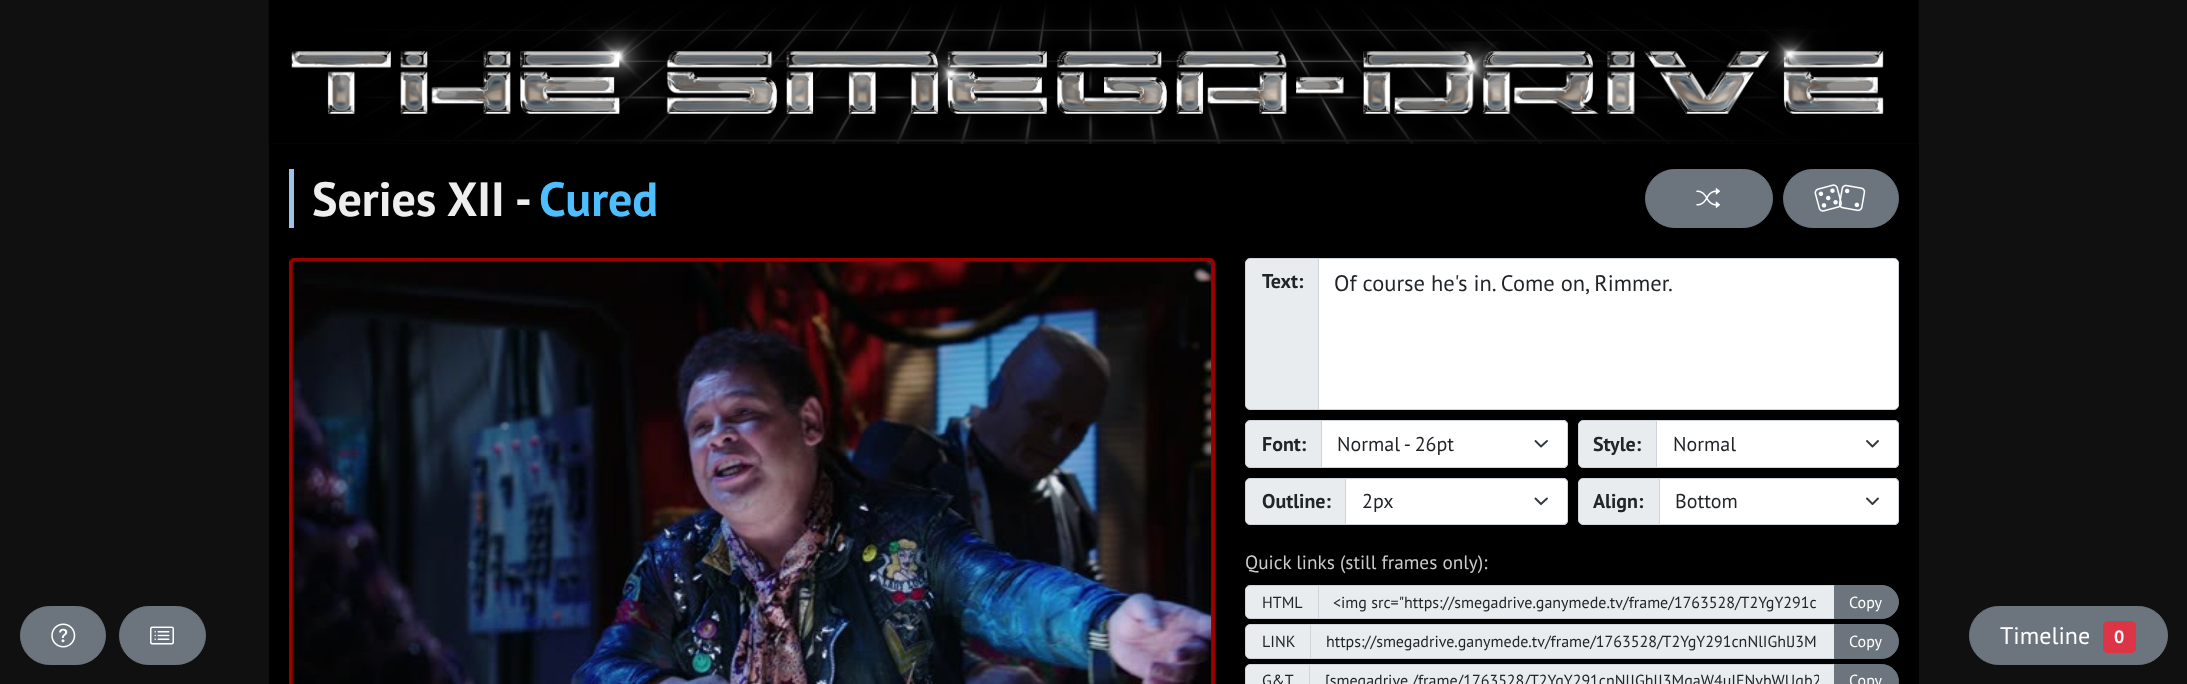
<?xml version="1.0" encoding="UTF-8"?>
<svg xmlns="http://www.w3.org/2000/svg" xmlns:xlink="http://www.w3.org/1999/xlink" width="2187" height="684">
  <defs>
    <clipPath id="clip1"><rect x="1325" y="669" width="494" height="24" /></clipPath>
  </defs>
  <rect width="100%" height="100%" fill="#101010" />
  <image x="268" y="0" width="1651" height="144" xlink:href="image1.png" />
  <rect x="20.5" y="606.5" width="85" height="58" rx="29" fill="#6c757d" stroke="#6c757d" />
  <image x="51" y="623" width="25" height="25" xlink:href="image2.png" />
  <rect x="119.5" y="606.5" width="86" height="58" rx="29" fill="#6c757d" stroke="#6c757d" />
  <image x="150" y="626" width="24" height="19" xlink:href="image3.png" />
  <rect x="269" y="144" width="1650" height="540" fill="#000000" />
  <rect x="289" y="169" width="5" height="59" fill="#a0c2e8" />
  <rect x="1645.5" y="169.5" width="127" height="58" rx="29" fill="#6c757d" stroke="#6c757d" />
  <image x="1696" y="188" width="24" height="20" xlink:href="image4.png" />
  <rect x="1783.5" y="169.5" width="115" height="58" rx="29" fill="#6c757d" stroke="#6c757d" />
  <image x="1814" y="184" width="28" height="28" xlink:href="image5.png" />
  <image x="1838" y="184" width="28" height="28" xlink:href="image6.png" />
  <rect x="291" y="260" width="922" height="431" rx="3" fill="none" stroke="#990000" stroke-width="4" />
  <image x="292" y="261" width="920" height="423" xlink:href="image7.png" />
  <path d="M 1250 258.5 h 68.5 v 151 h -68.5 c -2.5 0 -4.5 -2 -4.5 -4.5 v -142 c 0 -2.5 2 -4.5 4.5 -4.5 z" fill="#e9ecef" stroke="#ced4da" />
  <path d="M 1318.5 258.5 h 575.5 c 2.5 0 4.5 2 4.5 4.5 v 142 c 0 2.5 -2 4.5 -4.5 4.5 h -575.5 z" fill="#ffffff" stroke="#ced4da" />
  <path d="M 1250 420.5 h 72.5 v 47 h -72.5 c -2.5 0 -4.5 -2 -4.5 -4.5 v -38 c 0 -2.5 2 -4.5 4.5 -4.5 z" fill="#e9ecef" stroke="#ced4da" />
  <path d="M 1321 420 h 242 c 3 0 5 2 5 5 v 38 c 0 3 -2 5 -5 5 h -242 z" fill="#ffffff" />
  <path d="M 1535.5 441 l 5.5 5.5 l 6 -5.5" fill="none" stroke="#343a40" stroke-width="1.9" stroke-linecap="round" stroke-linejoin="round" />
  <path d="M 1321.5 420.5 h 241.5 c 2.5 0 4.5 2 4.5 4.5 v 38 c 0 2.5 -2 4.5 -4.5 4.5 h -241.5 z" fill="none" stroke="#ced4da" />
  <path d="M 1583 420.5 h 74.5 v 47 h -74.5 c -2.5 0 -4.5 -2 -4.5 -4.5 v -38 c 0 -2.5 2 -4.5 4.5 -4.5 z" fill="#e9ecef" stroke="#ced4da" />
  <path d="M 1656 420 h 238 c 3 0 5 2 5 5 v 38 c 0 3 -2 5 -5 5 h -238 z" fill="#ffffff" />
  <path d="M 1867 441 l 5.5 5.5 l 5.5 -5.5" fill="none" stroke="#343a40" stroke-width="1.9" stroke-linecap="round" stroke-linejoin="round" />
  <path d="M 1656.5 420.5 h 237.5 c 2.5 0 4.5 2 4.5 4.5 v 38 c 0 2.5 -2 4.5 -4.5 4.5 h -237.5 z" fill="none" stroke="#ced4da" />
  <path d="M 1250 478.5 h 95.5 v 46 h -95.5 c -2.5 0 -4.5 -2 -4.5 -4.5 v -37 c 0 -2.5 2 -4.5 4.5 -4.5 z" fill="#e9ecef" stroke="#ced4da" />
  <path d="M 1345 478 h 218 c 3 0 5 2 5 5 v 37 c 0 3 -2 5 -5 5 h -218 z" fill="#ffffff" />
  <path d="M 1535.5 498.5 l 5.5 5.5 l 6 -5.5" fill="none" stroke="#343a40" stroke-width="1.9" stroke-linecap="round" stroke-linejoin="round" />
  <path d="M 1345.5 478.5 h 217.5 c 2.5 0 4.5 2 4.5 4.5 v 37 c 0 2.5 -2 4.5 -4.5 4.5 h -217.5 z" fill="none" stroke="#ced4da" />
  <path d="M 1583 478.5 h 76.5 v 46 h -76.5 c -2.5 0 -4.5 -2 -4.5 -4.5 v -37 c 0 -2.5 2 -4.5 4.5 -4.5 z" fill="#e9ecef" stroke="#ced4da" />
  <path d="M 1659 478 h 235 c 3 0 5 2 5 5 v 37 c 0 3 -2 5 -5 5 h -235 z" fill="#ffffff" />
  <path d="M 1867 498.5 l 5.5 5.5 l 5.5 -5.5" fill="none" stroke="#343a40" stroke-width="1.9" stroke-linecap="round" stroke-linejoin="round" />
  <path d="M 1659.5 478.5 h 234.5 c 2.5 0 4.5 2 4.5 4.5 v 37 c 0 2.5 -2 4.5 -4.5 4.5 h -234.5 z" fill="none" stroke="#ced4da" />
  <path d="M 1250 585.5 h 68.5 v 33 h -68.5 c -2.5 0 -4.5 -2 -4.5 -4.5 v -24 c 0 -2.5 2 -4.5 4.5 -4.5 z" fill="#e9ecef" stroke="#ced4da" />
  <rect x="1318.5" y="585.5" width="516" height="33" fill="#e9ecef" stroke="#ced4da" />
  <path d="M 1834.5 585.5 h 47.5 c 9 0 16.5 7.5 16.5 16.5 c 0 9 -7.5 16.5 -16.5 16.5 h -47.5 z" fill="#6c757d" stroke="#6c757d" />
  <path d="M 1250 624.5 h 60.5 v 34 h -60.5 c -2.5 0 -4.5 -2 -4.5 -4.5 v -25 c 0 -2.5 2 -4.5 4.5 -4.5 z" fill="#e9ecef" stroke="#ced4da" />
  <rect x="1310.5" y="624.5" width="524" height="34" fill="#e9ecef" stroke="#ced4da" />
  <path d="M 1834.5 624.5 h 47 c 9.5 0 17 7.5 17 17 c 0 9.5 -7.5 17 -17 17 h -47 z" fill="#6c757d" stroke="#6c757d" />
  <path d="M 1250 664.5 h 59.5 v 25 h -59.5 c -2.5 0 -4.5 -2 -4.5 -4.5 v -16 c 0 -2.5 2 -4.5 4.5 -4.5 z" fill="#e9ecef" stroke="#ced4da" />
  <rect x="1309.5" y="664.5" width="525" height="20" fill="#e9ecef" stroke="#ced4da" />
  <path d="M 1834.5 664.5 h 47 c 9.5 0 17 7.5 17 17 c 0 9.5 -7.5 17 -17 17 h -47 z" fill="#6c757d" stroke="#6c757d" />
  <rect x="1969.5" y="606.5" width="198" height="58" rx="29" fill="#6c757d" stroke="#6c757d" />
  <rect x="2103" y="621" width="33" height="32" rx="5" fill="#dc3545" />
  <text x="312" y="216" style="font-family: PT Sans; font-size: 48px; font-weight: bold; fill: #eeeeee">Series XII -</text>
  <text x="539" y="216" style="font-family: PT Sans; font-size: 48px; font-weight: bold; fill: #4fbeff">Cured</text>
  <text x="1262" y="288" style="font-family: PT Sans; font-size: 20px; font-weight: bold; fill: #212529">Text:</text>
  <text x="1334" y="291" style="font-family: PT Sans; font-size: 22.5px; fill: #212529">Of course he's in. Come on, Rimmer.</text>
  <text x="1262" y="451" style="font-family: PT Sans; font-size: 20px; font-weight: bold; fill: #212529">Font:</text>
  <text x="1337" y="451" style="font-family: PT Sans; font-size: 20px; fill: #212529">Normal - 26pt</text>
  <text x="1593" y="451" style="font-family: PT Sans; font-size: 20px; font-weight: bold; fill: #212529">Style:</text>
  <text x="1673" y="451" style="font-family: PT Sans; font-size: 20px; fill: #212529">Normal</text>
  <text x="1262" y="508" style="font-family: PT Sans; font-size: 20px; font-weight: bold; fill: #212529">Outline:</text>
  <text x="1362" y="508" style="font-family: PT Sans; font-size: 20px; fill: #212529">2px</text>
  <text x="1593" y="508" style="font-family: PT Sans; font-size: 20px; font-weight: bold; fill: #212529">Align:</text>
  <text x="1675" y="508" style="font-family: PT Sans; font-size: 20px; fill: #212529">Bottom</text>
  <text x="1245" y="569" style="font-family: PT Sans; font-size: 19.25px; fill: #cccccc">Quick links (still frames only):</text>
  <text x="1262" y="608" style="font-family: PT Sans; font-size: 16px; fill: #212529">HTML</text>
  <text x="1333" y="608" style="font-family: PT Sans; font-size: 16px; fill: #212529">&lt;img src="https://smegadrive.ganymede.tv/frame/1763528/T2YgY291c</text>
  <text x="1849" y="608" style="font-family: PT Sans; font-size: 16px; fill: #ffffff">Copy</text>
  <text x="1262" y="647" style="font-family: PT Sans; font-size: 16px; fill: #212529">LINK</text>
  <text x="1326" y="647" style="font-family: PT Sans; font-size: 16px; fill: #212529">https://smegadrive.ganymede.tv/frame/1763528/T2YgY291cnNlIGhlJ3M</text>
  <text x="1849" y="647" style="font-family: PT Sans; font-size: 16px; fill: #ffffff">Copy</text>
  <text x="1262" y="686" style="font-family: PT Sans; font-size: 16px; fill: #212529">G&amp;T</text>
  <g clip-path="url(#clip1)">
    <text x="1325" y="686" style="font-family: PT Sans; font-size: 16px; fill: #212529">[smegadrive /frame/1763528/T2YgY291cnNlIGhlJ3MgaW4uIENvbWUgb2</text>
  </g>
  <text x="1849" y="686" style="font-family: PT Sans; font-size: 16px; fill: #ffffff">Copy</text>
  <text x="2000" y="644" style="font-family: PT Sans; font-size: 24px; fill: #ffffff">Timeline</text>
  <text x="2114" y="643" style="font-family: PT Sans; font-size: 18px; font-weight: bold; fill: #ffffff">0</text>
</svg>
